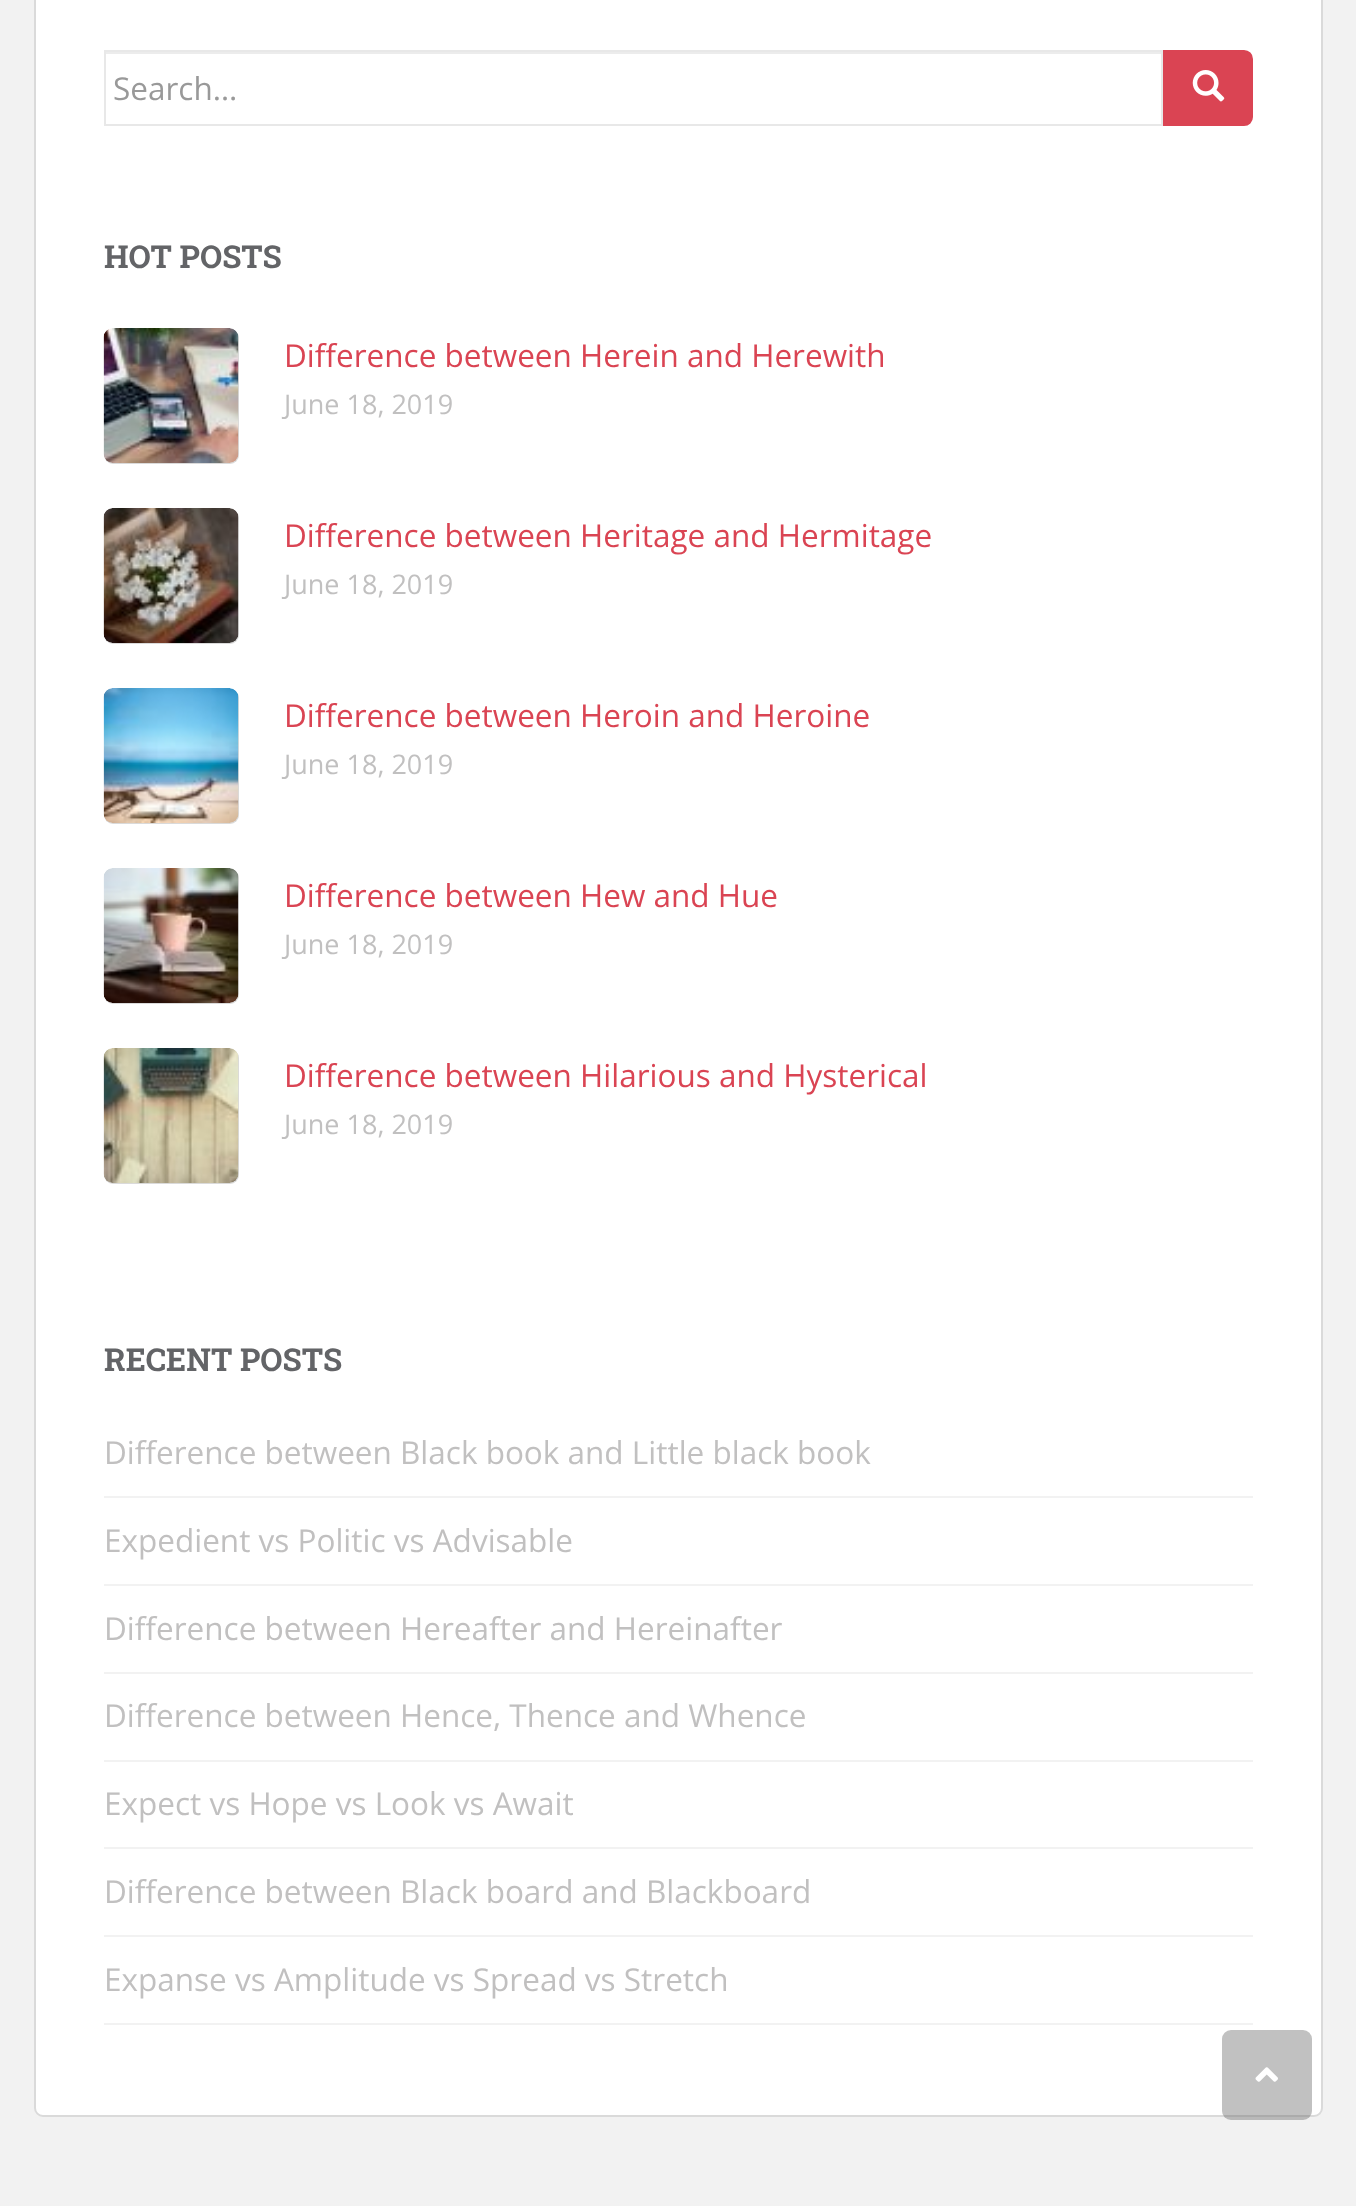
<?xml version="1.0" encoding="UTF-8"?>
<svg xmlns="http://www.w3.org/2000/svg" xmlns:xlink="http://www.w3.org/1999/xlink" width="1356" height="2206">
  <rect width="100%" height="100%" fill="#f2f2f2" />
  <rect x="35" y="-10" width="1287" height="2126" rx="8" fill="#ffffff" stroke="#dadada" stroke-width="2" />
  <rect x="106" y="52" width="1055" height="2" fill="#ececec" />
  <rect x="105" y="51" width="1057" height="74" fill="none" stroke="#e8e8e8" stroke-width="2" />
  <path d="M 1164 51 h 80 c 4.5 0 8 3.5 8 8 v 58 c 0 4.5 -3.5 8 -8 8 h -80 z" fill="#da4453" stroke="#da4453" stroke-width="2" />
  <image x="1192" y="70" width="33" height="32" xlink:href="image1.png" />
  <rect x="104" y="329" width="135" height="135" rx="9" fill="#dadada" />
  <image x="103" y="328" width="136" height="135" xlink:href="image2.png" />
  <rect x="104" y="509" width="135" height="135" rx="9" fill="#dadada" />
  <image x="103" y="508" width="136" height="135" xlink:href="image3.png" />
  <rect x="104" y="689" width="135" height="135" rx="9" fill="#dadada" />
  <image x="103" y="688" width="136" height="135" xlink:href="image4.png" />
  <rect x="104" y="869" width="135" height="135" rx="9" fill="#dadada" />
  <image x="103" y="868" width="136" height="135" xlink:href="image5.png" />
  <rect x="104" y="1049" width="135" height="135" rx="9" fill="#dadada" />
  <image x="103" y="1048" width="136" height="135" xlink:href="image6.png" />
  <rect x="104" y="1496" width="1149" height="2" fill="#f2f2f2" />
  <rect x="104" y="1584" width="1149" height="2" fill="#f2f2f2" />
  <rect x="104" y="1672" width="1149" height="2" fill="#f2f2f2" />
  <rect x="104" y="1760" width="1149" height="2" fill="#f2f2f2" />
  <rect x="104" y="1847" width="1149" height="2" fill="#f2f2f2" />
  <rect x="104" y="1935" width="1149" height="2" fill="#f2f2f2" />
  <rect x="104" y="2023" width="1149" height="2" fill="#f2f2f2" />
  <rect x="1222" y="2030" width="90" height="90" rx="9" fill="#646464" fill-opacity="0.4" />
  <image x="1255" y="2067" width="23" height="15" xlink:href="image7.png" />
  <text x="113" y="100" style="font-family: Open Sans; font-size: 31.5px; fill: #999999">Search…</text>
  <text x="104" y="268" style="font-family: Roboto Slab; font-size: 31.5px; font-weight: bold; fill: #636467">HOT POSTS</text>
  <text x="284" y="367" style="font-family: Open Sans; font-size: 31.5px; fill: #da4453">Difference between Herein and Herewith</text>
  <text x="284" y="414" style="font-family: Open Sans; font-size: 27px; fill: #c1c0c0">June 18, 2019</text>
  <text x="284" y="547" style="font-family: Open Sans; font-size: 31.5px; fill: #da4453">Difference between Heritage and Hermitage</text>
  <text x="284" y="594" style="font-family: Open Sans; font-size: 27px; fill: #c1c0c0">June 18, 2019</text>
  <text x="284" y="727" style="font-family: Open Sans; font-size: 31.5px; fill: #da4453">Difference between Heroin and Heroine</text>
  <text x="284" y="774" style="font-family: Open Sans; font-size: 27px; fill: #c1c0c0">June 18, 2019</text>
  <text x="284" y="907" style="font-family: Open Sans; font-size: 31.5px; fill: #da4453">Difference between Hew and Hue</text>
  <text x="284" y="954" style="font-family: Open Sans; font-size: 27px; fill: #c1c0c0">June 18, 2019</text>
  <text x="284" y="1087" style="font-family: Open Sans; font-size: 31.5px; fill: #da4453">Difference between Hilarious and Hysterical</text>
  <text x="284" y="1134" style="font-family: Open Sans; font-size: 27px; fill: #c1c0c0">June 18, 2019</text>
  <text x="104" y="1371" style="font-family: Roboto Slab; font-size: 31.5px; font-weight: bold; fill: #636467">RECENT POSTS</text>
  <text x="104" y="1464" style="font-family: Open Sans; font-size: 31.5px; fill: #c1c0c0">Difference between Black book and Little black book</text>
  <text x="104" y="1552" style="font-family: Open Sans; font-size: 31.5px; fill: #c1c0c0">Expedient vs Politic vs Advisable</text>
  <text x="104" y="1640" style="font-family: Open Sans; font-size: 31.5px; fill: #c1c0c0">Difference between Hereafter and Hereinafter</text>
  <text x="104" y="1727" style="font-family: Open Sans; font-size: 31.5px; fill: #c1c0c0">Difference between Hence, Thence and Whence</text>
  <text x="104" y="1815" style="font-family: Open Sans; font-size: 31.5px; fill: #c1c0c0">Expect vs Hope vs Look vs Await</text>
  <text x="104" y="1903" style="font-family: Open Sans; font-size: 31.5px; fill: #c1c0c0">Difference between Black board and Blackboard</text>
  <text x="104" y="1991" style="font-family: Open Sans; font-size: 31.5px; fill: #c1c0c0">Expanse vs Amplitude vs Spread vs Stretch</text>
</svg>
